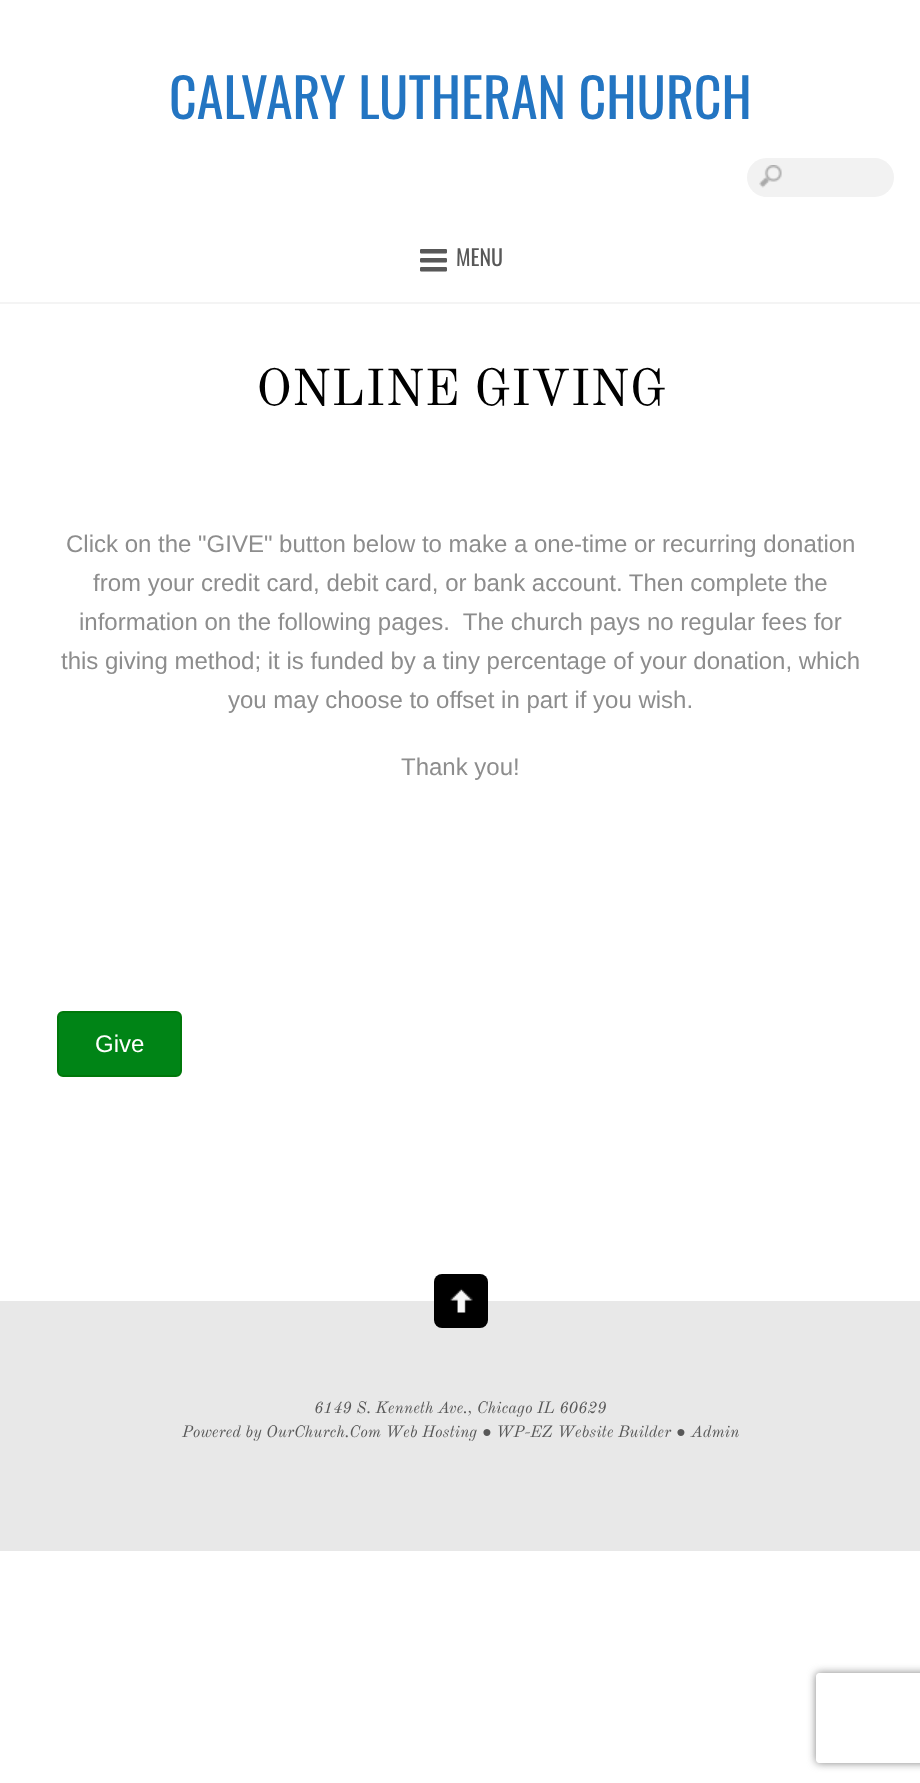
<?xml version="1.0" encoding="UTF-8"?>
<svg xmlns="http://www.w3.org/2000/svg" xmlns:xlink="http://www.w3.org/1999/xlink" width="920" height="1783">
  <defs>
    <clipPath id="clip1"><path d="M 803 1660 h 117 v 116 h -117 z m 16 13 h 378 c 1.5 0 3 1.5 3 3 v 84 c 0 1.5 -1.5 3 -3 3 h -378 c -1.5 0 -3 -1.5 -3 -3 v -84 c 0 -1.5 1.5 -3 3 -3 z" clip-rule="evenodd" /></clipPath>
  </defs>
  <rect width="100%" height="100%" fill="#ffffff" />
  <rect y="302" width="920" height="2" fill="#f4f4f4" />
  <rect x="747" y="158" width="147" height="39" rx="19.5" fill="#f2f2f2" />
  <image x="759" y="165" width="23" height="23" xlink:href="image1.png" />
  <image x="420" y="249" width="27" height="23" xlink:href="image2.png" />
  <rect x="58" y="1012" width="123" height="64" rx="5" fill="#008416" stroke="#00780a" stroke-width="2" />
  <rect y="1301" width="920" height="250" fill="#e8e8e8" />
  <rect x="434" y="1274" width="54" height="54" rx="8" fill="#000000" />
  <image x="450" y="1288" width="23" height="25" xlink:href="image3.png" />
  <g clip-path="url(#clip1)">
    <rect x="816" y="1673" width="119" height="90" rx="3" fill="#808080" filter="blur(4px)" />
  </g>
  <text x="169" y="119" style="font-family: Oswald; font-size: 54px; fill: #2375c2">CALVARY LUTHERAN CHURCH</text>
  <text x="456" y="266" style="font-family: Oswald; font-size: 22px; fill: #585858">MENU</text>
  <text x="256" y="405" style="font-family: Old Standard TT; font-size: 51px; fill: #000000">ONLINE GIVING</text>
  <text x="66" y="552" style="font-family: Liberation Sans; font-size: 24px; fill: #8d8d8d">Click on the "GIVE" button below to make a one-time or recurring donation</text>
  <text x="93" y="591" style="font-family: Liberation Sans; font-size: 24px; fill: #8d8d8d">from your credit card, debit card, or bank account. Then complete the</text>
  <text x="79" y="630" style="font-family: Liberation Sans; font-size: 24px; fill: #8d8d8d" xml:space="preserve">information on the following pages.  The church pays no regular fees for</text>
  <text x="61" y="669" style="font-family: Liberation Sans; font-size: 24px; fill: #8d8d8d">this giving method; it is funded by a tiny percentage of your donation, which</text>
  <text x="228" y="708" style="font-family: Liberation Sans; font-size: 24px; fill: #8d8d8d">you may choose to offset in part if you wish.</text>
  <text x="401" y="775" style="font-family: Liberation Sans; font-size: 24px; fill: #8d8d8d">Thank you!</text>
  <text x="95" y="1052" style="font-family: Liberation Sans; font-size: 24px; fill: #ffffff">Give</text>
  <text x="314" y="1413" style="font-family: Old Standard TT; font-size: 16.3px; font-style: italic; fill: #585858">6149 S. Kenneth Ave., Chicago IL 60629</text>
  <text x="182" y="1437" style="font-family: Old Standard TT; font-size: 16.3px; font-style: italic; fill: #585858">Powered by OurChurch.Com Web Hosting</text>
  <text x="482" y="1437" style="font-family: Liberation Serif; font-size: 16.3px; font-style: italic; fill: #585858">●</text>
  <text x="496" y="1437" style="font-family: Old Standard TT; font-size: 16.3px; font-style: italic; fill: #585858">WP-EZ Website Builder</text>
  <text x="676" y="1437" style="font-family: Liberation Serif; font-size: 16.3px; font-style: italic; fill: #585858">●</text>
  <text x="691" y="1437" style="font-family: Old Standard TT; font-size: 16.3px; font-style: italic; fill: #585858">Admin</text>
</svg>
